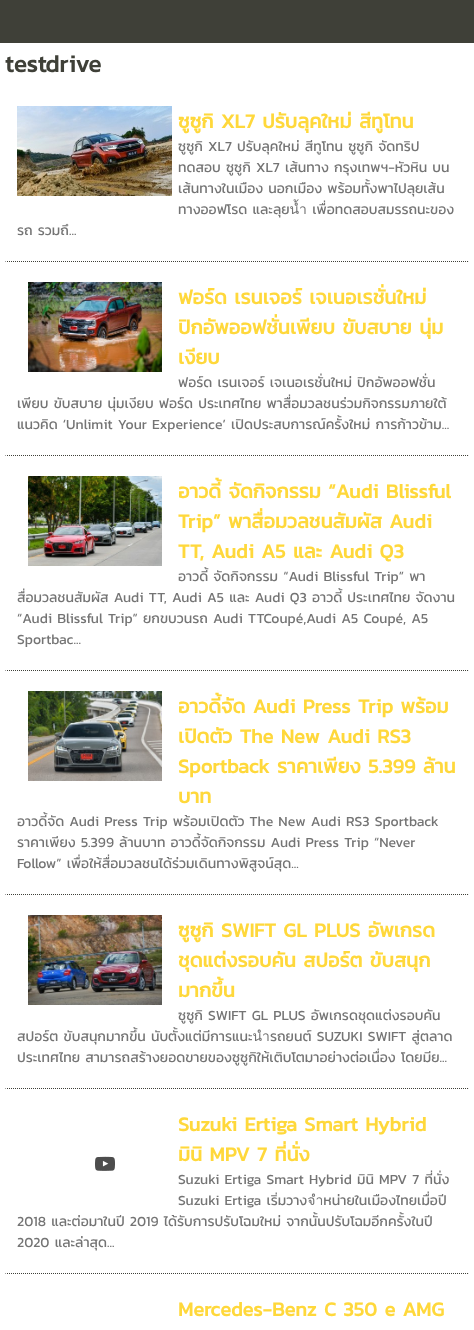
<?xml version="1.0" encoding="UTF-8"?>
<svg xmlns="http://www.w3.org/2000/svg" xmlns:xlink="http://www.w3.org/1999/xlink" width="474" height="1330">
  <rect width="100%" height="100%" fill="#ffffff" />
  <rect width="474" height="43" fill="#3f4038" />
  <path d="M 5 261.5 h 464" fill="none" stroke="#3f4038" stroke-dasharray="1 1" />
  <rect x="468" y="261" width="1" height="1" fill="#eeeeee" />
  <rect x="5" y="261" width="1" height="1" fill="#9f9f9f" />
  <image x="28" y="282" width="134" height="90" xlink:href="image2.png" />
  <path d="M 5 455.5 h 464" fill="none" stroke="#3f4038" stroke-dasharray="1 1" />
  <rect x="468" y="455" width="1" height="1" fill="#eeeeee" />
  <rect x="5" y="455" width="1" height="1" fill="#9f9f9f" />
  <image x="28" y="476" width="134" height="90" xlink:href="image3.png" />
  <path d="M 5 670.5 h 464" fill="none" stroke="#3f4038" stroke-dasharray="1 1" />
  <rect x="468" y="670" width="1" height="1" fill="#eeeeee" />
  <rect x="5" y="670" width="1" height="1" fill="#9f9f9f" />
  <image x="28" y="691" width="134" height="90" xlink:href="image4.png" />
  <path d="M 5 894.5 h 464" fill="none" stroke="#3f4038" stroke-dasharray="1 1" />
  <rect x="468" y="894" width="1" height="1" fill="#eeeeee" />
  <rect x="5" y="894" width="1" height="1" fill="#9f9f9f" />
  <image x="28" y="915" width="134" height="90" xlink:href="image5.png" />
  <path d="M 5 1088.5 h 464" fill="none" stroke="#3f4038" stroke-dasharray="1 1" />
  <rect x="468" y="1088" width="1" height="1" fill="#eeeeee" />
  <rect x="5" y="1088" width="1" height="1" fill="#9f9f9f" />
  <image x="95" y="1156" width="20" height="15" xlink:href="image6.png" />
  <path d="M 5 1273.5 h 464" fill="none" stroke="#3f4038" stroke-dasharray="1 1" />
  <rect x="468" y="1273" width="1" height="1" fill="#eeeeee" />
  <rect x="5" y="1273" width="1" height="1" fill="#9f9f9f" />
  <text x="5" y="72" style="font-family: Kanit; font-size: 24px; font-weight: bold; fill: #3f4038">testdrive</text>
  <text x="178" y="128" style="font-family: Kanit; font-size: 20px; font-weight: bold; fill: #ffd83b">ซูซูกิ XL7 ปรับลุคใหม่ สีทูโทน</text>
  <image x="17" y="106" width="155" height="90" xlink:href="image1.png" />
  <text x="178" y="151" style="font-family: Kanit; font-size: 14px; fill: #747474">ซูซูกิ XL7 ปรับลุคใหม่ สีทูโทน ซูซูกิ จัดทริป</text>
  <text x="178" y="172" style="font-family: Kanit; font-size: 14px; fill: #747474">ทดสอบ ซูซูกิ XL7 เส้นทาง กรุงเทพฯ-หัวหิน บน</text>
  <text x="178" y="193" style="font-family: Kanit; font-size: 14px; fill: #747474">เส้นทางในเมือง นอกเมือง พร้อมทั้งพาไปลุยเส้น</text>
  <text x="178" y="214" style="font-family: Kanit; font-size: 14px; fill: #747474">ทางออฟโรด และลุยน้ำ เพื่อทดสอบสมรรถนะของ</text>
  <text x="17" y="235" style="font-family: Kanit; font-size: 14px; fill: #747474">รถ รวมถึ...</text>
  <text x="178" y="304" style="font-family: Kanit; font-size: 20px; font-weight: bold; fill: #ffd83b">ฟอร์ด เรนเจอร์ เจเนอเรชั่นใหม่</text>
  <text x="178" y="334" style="font-family: Kanit; font-size: 20px; font-weight: bold; fill: #ffd83b">ปิกอัพออฟชั่นเพียบ ขับสบาย นุ่ม</text>
  <text x="178" y="364" style="font-family: Kanit; font-size: 20px; font-weight: bold; fill: #ffd83b">เงียบ</text>
  <text x="178" y="387" style="font-family: Kanit; font-size: 14px; fill: #747474">ฟอร์ด เรนเจอร์ เจเนอเรชั่นใหม่ ปิกอัพออฟชั่น</text>
  <text x="17" y="408" style="font-family: Kanit; font-size: 14px; fill: #747474">เพียบ ขับสบาย นุ่มเงียบ ฟอร์ด ประเทศไทย พาสื่อมวลชนร่วมกิจกรรมภายใต้</text>
  <text x="17" y="429" style="font-family: Kanit; font-size: 14px; fill: #747474">แนวคิด ‘Unlimit Your Experience’ เปิดประสบการณ์ครั้งใหม่ การก้าวข้าม...</text>
  <text x="178" y="498" style="font-family: Kanit; font-size: 20px; font-weight: bold; fill: #ffd83b">อาวดี้ จัดกิจกรรม “Audi Blissful</text>
  <text x="178" y="528" style="font-family: Kanit; font-size: 20px; font-weight: bold; fill: #ffd83b">Trip” พาสื่อมวลชนสัมผัส Audi</text>
  <text x="178" y="558" style="font-family: Kanit; font-size: 20px; font-weight: bold; fill: #ffd83b">TT, Audi A5 และ Audi Q3</text>
  <text x="178" y="581" style="font-family: Kanit; font-size: 14px; fill: #747474">อาวดี้ จัดกิจกรรม “Audi Blissful Trip” พา</text>
  <text x="17" y="602" style="font-family: Kanit; font-size: 14px; fill: #747474">สื่อมวลชนสัมผัส Audi TT, Audi A5 และ Audi Q3 อาวดี้ ประเทศไทย จัดงาน</text>
  <text x="17" y="623" style="font-family: Kanit; font-size: 14px; fill: #747474">“Audi Blissful Trip” ยกขบวนรถ Audi TTCoupé,Audi A5 Coupé, A5</text>
  <text x="17" y="644" style="font-family: Kanit; font-size: 14px; fill: #747474">Sportbac...</text>
  <text x="178" y="713" style="font-family: Kanit; font-size: 20px; font-weight: bold; fill: #ffd83b">อาวดี้จัด Audi Press Trip พร้อม</text>
  <text x="178" y="743" style="font-family: Kanit; font-size: 20px; font-weight: bold; fill: #ffd83b">เปิดตัว The New Audi RS3</text>
  <text x="178" y="773" style="font-family: Kanit; font-size: 20px; font-weight: bold; fill: #ffd83b">Sportback ราคาเพียง 5.399 ล้าน</text>
  <text x="178" y="803" style="font-family: Kanit; font-size: 20px; font-weight: bold; fill: #ffd83b">บาท</text>
  <text x="17" y="826" style="font-family: Kanit; font-size: 14px; fill: #747474">อาวดี้จัด Audi Press Trip พร้อมเปิดตัว The New Audi RS3 Sportback</text>
  <text x="17" y="847" style="font-family: Kanit; font-size: 14px; fill: #747474">ราคาเพียง 5.399 ล้านบาท อาวดี้จัดกิจกรรม Audi Press Trip “Never</text>
  <text x="17" y="868" style="font-family: Kanit; font-size: 14px; fill: #747474">Follow” เพื่อให้สื่อมวลชนได้ร่วมเดินทางพิสูจน์สุด...</text>
  <text x="178" y="937" style="font-family: Kanit; font-size: 20px; font-weight: bold; fill: #ffd83b">ซูซูกิ SWIFT GL PLUS อัพเกรด</text>
  <text x="178" y="967" style="font-family: Kanit; font-size: 20px; font-weight: bold; fill: #ffd83b">ชุดแต่งรอบคัน สปอร์ต ขับสนุก</text>
  <text x="178" y="997" style="font-family: Kanit; font-size: 20px; font-weight: bold; fill: #ffd83b">มากขึ้น</text>
  <text x="178" y="1020" style="font-family: Kanit; font-size: 14px; fill: #747474">ซูซูกิ SWIFT GL PLUS อัพเกรดชุดแต่งรอบคัน</text>
  <text x="17" y="1041" style="font-family: Kanit; font-size: 14px; fill: #747474">สปอร์ต ขับสนุกมากขึ้น นับตั้งแต่มีการแนะนำรถยนต์ SUZUKI SWIFT สู่ตลาด</text>
  <text x="17" y="1062" style="font-family: Kanit; font-size: 14px; fill: #747474">ประเทศไทย สามารถสร้างยอดขายของซูซูกิให้เติบโตมาอย่างต่อเนื่อง โดยมีย...</text>
  <text x="178" y="1131" style="font-family: Kanit; font-size: 20px; font-weight: bold; fill: #ffd83b">Suzuki Ertiga Smart Hybrid</text>
  <text x="178" y="1161" style="font-family: Kanit; font-size: 20px; font-weight: bold; fill: #ffd83b">มินิ MPV 7 ที่นั่ง</text>
  <text x="178" y="1184" style="font-family: Kanit; font-size: 14px; fill: #747474">Suzuki Ertiga Smart Hybrid มินิ MPV 7 ที่นั่ง</text>
  <text x="178" y="1205" style="font-family: Kanit; font-size: 14px; fill: #747474">Suzuki Ertiga เริ่มวางจำหน่ายในเมืองไทยเมื่อปี</text>
  <text x="17" y="1226" style="font-family: Kanit; font-size: 14px; fill: #747474">2018 และต่อมาในปี 2019 ได้รับการปรับโฉมใหม่ จากนั้นปรับโฉมอีกครั้งในปี</text>
  <text x="17" y="1247" style="font-family: Kanit; font-size: 14px; fill: #747474">2020 และล่าสุด...</text>
  <text x="178" y="1316" style="font-family: Kanit; font-size: 20px; font-weight: bold; fill: #ffd83b">Mercedes-Benz C 350 e AMG</text>
</svg>
